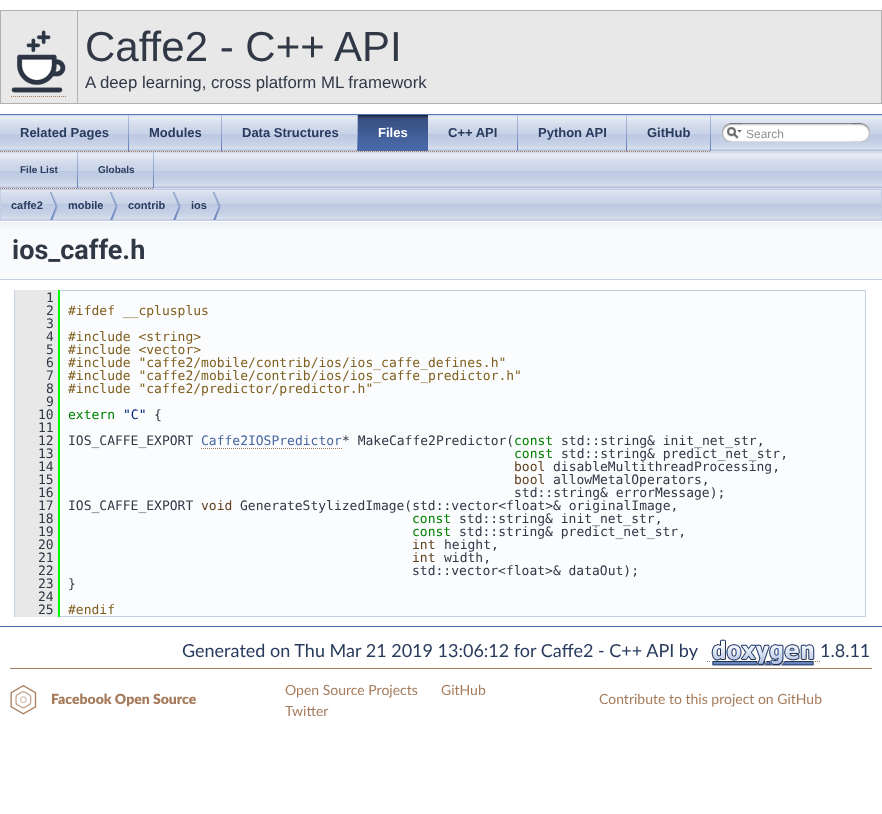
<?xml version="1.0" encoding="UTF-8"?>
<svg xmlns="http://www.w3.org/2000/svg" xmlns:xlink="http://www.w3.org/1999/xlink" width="882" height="814">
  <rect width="100%" height="100%" fill="#ffffff" />
  <rect y="114" width="882" height="1" fill="#5373b4" />
  <rect y="10" width="882" height="1" fill="#b0b0b0" />
  <rect x="881" y="10" width="1" height="94" fill="#b0b0b0" />
  <rect y="103" width="882" height="1" fill="#b0b0b0" />
  <rect y="10" width="1" height="94" fill="#b0b0b0" />
  <rect x="1" y="11" width="880" height="92" fill="#e8e8e8" />
  <rect x="77" y="10" width="1" height="94" fill="#b0b0b0" />
  <image x="11" y="30" width="55" height="63" xlink:href="image1.png" />
  <path d="M 11 96.5 h 55" fill="none" stroke="#a67b5b" stroke-dasharray="1 1" />
  <image x="0" y="115" width="882" height="37" xlink:href="image2.png" />
  <image x="128" y="115" width="1" height="36" xlink:href="image3.png" />
  <path d="M 0 151.5 h 129" fill="none" stroke="#a67b5b" stroke-dasharray="1 1" />
  <image x="221" y="115" width="1" height="36" xlink:href="image3.png" />
  <path d="M 129 151.5 h 93" fill="none" stroke="#a67b5b" stroke-dasharray="1 1" />
  <image x="357" y="115" width="1" height="36" xlink:href="image3.png" />
  <path d="M 222 151.5 h 136" fill="none" stroke="#a67b5b" stroke-dasharray="1 1" />
  <image x="358" y="115" width="70" height="36" xlink:href="image4.png" />
  <path d="M 358 151.5 h 70" fill="none" stroke="#a67b5b" stroke-dasharray="1 1" />
  <image x="517" y="115" width="1" height="36" xlink:href="image3.png" />
  <path d="M 428 151.5 h 90" fill="none" stroke="#a67b5b" stroke-dasharray="1 1" />
  <image x="626" y="115" width="1" height="36" xlink:href="image3.png" />
  <path d="M 518 151.5 h 109" fill="none" stroke="#a67b5b" stroke-dasharray="1 1" />
  <image x="710" y="115" width="1" height="36" xlink:href="image3.png" />
  <path d="M 627 151.5 h 84" fill="none" stroke="#a67b5b" stroke-dasharray="1 1" />
  <image x="722" y="123" width="20" height="19" xlink:href="image5.png" />
  <image x="727" y="127" width="15" height="12" xlink:href="image6.png" />
  <image x="742" y="123" width="110" height="19" xlink:href="image7.png" />
  <image x="852" y="123" width="18" height="19" xlink:href="image8.png" />
  <image x="0" y="152" width="882" height="37" xlink:href="image2.png" />
  <image x="77" y="152" width="1" height="36" xlink:href="image3.png" />
  <path d="M 0 188.5 h 78" fill="none" stroke="#a67b5b" stroke-dasharray="1 1" />
  <image x="153" y="152" width="1" height="36" xlink:href="image3.png" />
  <path d="M 78 188.5 h 76" fill="none" stroke="#a67b5b" stroke-dasharray="1 1" />
  <image x="1" y="190" width="880" height="30" xlink:href="image9.png" />
  <rect x="0.5" y="189.5" width="881" height="31" fill="none" stroke="#c2cde4" />
  <image x="50" y="192" width="8" height="28" xlink:href="image10.png" />
  <image x="110" y="192" width="8" height="28" xlink:href="image10.png" />
  <image x="173" y="192" width="8" height="28" xlink:href="image10.png" />
  <image x="213" y="192" width="8" height="28" xlink:href="image10.png" />
  <rect y="229" width="882" height="50" fill="#f9fafc" />
  <image x="0" y="221" width="882" height="8" xlink:href="image11.png" />
  <rect y="279" width="882" height="1" fill="#c4cfe5" />
  <rect x="60" y="291" width="805" height="325" fill="#fbfcfd" />
  <rect x="14.5" y="290.5" width="851" height="326" fill="none" stroke="#c4cfe5" />
  <rect x="15" y="290" width="43" height="327" fill="#e8e8e8" />
  <rect x="58" y="290" width="2" height="327" fill="#00ff00" />
  <path d="M 201 448.5 h 141" fill="none" stroke="#a67b5b" stroke-dasharray="1 1" />
  <rect y="626" width="882" height="1" fill="#4a6aaa" />
  <path d="M 707 661.5 h 1 m 1 0 h 1" fill="none" stroke="#a67b5b" />
  <image x="711" y="639" width="104" height="27" xlink:href="image12.png" />
  <path d="M 815 661.5 h 1 m 1 0 h 1 m 1 0 h 1" fill="none" stroke="#a67b5b" />
  <rect x="10" y="668" width="862" height="1" fill="#a67b5b" />
  <image x="10" y="685" width="27" height="30" xlink:href="image13.png" />
  <text x="85" y="61" style="font-family: Liberation Sans; font-size: 42px; fill: #303846">Caffe2 - C++ API</text>
  <text x="85" y="88" style="font-family: Liberation Sans; font-size: 16.8px; fill: #303846">A deep learning, cross platform ML framework</text>
  <text x="20" y="137" style="font-family: Liberation Sans; font-size: 13px; font-weight: bold; fill: #283a5d">Related Pages</text>
  <text x="149" y="137" style="font-family: Liberation Sans; font-size: 13px; font-weight: bold; fill: #283a5d">Modules</text>
  <text x="242" y="137" style="font-family: Liberation Sans; font-size: 13px; font-weight: bold; fill: #283a5d">Data Structures</text>
  <text x="378" y="137" style="font-family: Liberation Sans; font-size: 13px; font-weight: bold; fill: #ffffff">Files</text>
  <text x="448" y="137" style="font-family: Liberation Sans; font-size: 13px; font-weight: bold; fill: #283a5d">C++ API</text>
  <text x="538" y="137" style="font-family: Liberation Sans; font-size: 13px; font-weight: bold; fill: #283a5d">Python API</text>
  <text x="647" y="137" style="font-family: Liberation Sans; font-size: 13px; font-weight: bold; fill: #283a5d">GitHub</text>
  <text x="746" y="138" style="font-family: Liberation Sans; font-size: 12px; fill: #909090">Search</text>
  <text x="20" y="173" style="font-family: Liberation Sans; font-size: 10px; font-weight: bold; fill: #283a5d">File List</text>
  <text x="98" y="173" style="font-family: Liberation Sans; font-size: 10px; font-weight: bold; fill: #283a5d">Globals</text>
  <text x="11" y="209" style="font-family: Liberation Sans; font-size: 11px; font-weight: bold; fill: #283a5d">caffe2</text>
  <text x="68" y="209" style="font-family: Liberation Sans; font-size: 11px; font-weight: bold; fill: #283a5d">mobile</text>
  <text x="128" y="209" style="font-family: Liberation Sans; font-size: 11px; font-weight: bold; fill: #283a5d">contrib</text>
  <text x="191" y="209" style="font-family: Liberation Sans; font-size: 11px; font-weight: bold; fill: #283a5d">ios</text>
  <text x="12" y="259" style="font-family: Roboto; font-size: 27px; font-weight: bold; fill: #303846">ios_caffe.h</text>
  <text x="46" y="302" style="font-family: DejaVu Sans Mono; font-size: 13px; fill: #303846">1</text>
  <text x="46" y="315" style="font-family: DejaVu Sans Mono; font-size: 13px; fill: #303846">2</text>
  <text x="68" y="315" style="font-family: DejaVu Sans Mono; font-size: 13px; fill: #806020">#ifdef __cplusplus</text>
  <text x="46" y="328" style="font-family: DejaVu Sans Mono; font-size: 13px; fill: #303846">3</text>
  <text x="46" y="341" style="font-family: DejaVu Sans Mono; font-size: 13px; fill: #303846">4</text>
  <text x="68" y="341" style="font-family: DejaVu Sans Mono; font-size: 13px; fill: #806020">#include &lt;string&gt;</text>
  <text x="46" y="354" style="font-family: DejaVu Sans Mono; font-size: 13px; fill: #303846">5</text>
  <text x="68" y="354" style="font-family: DejaVu Sans Mono; font-size: 13px; fill: #806020">#include &lt;vector&gt;</text>
  <text x="46" y="367" style="font-family: DejaVu Sans Mono; font-size: 13px; fill: #303846">6</text>
  <text x="68" y="367" style="font-family: DejaVu Sans Mono; font-size: 13px; fill: #806020">#include "caffe2/mobile/contrib/ios/ios_caffe_defines.h"</text>
  <text x="46" y="380" style="font-family: DejaVu Sans Mono; font-size: 13px; fill: #303846">7</text>
  <text x="68" y="380" style="font-family: DejaVu Sans Mono; font-size: 13px; fill: #806020">#include "caffe2/mobile/contrib/ios/ios_caffe_predictor.h"</text>
  <text x="46" y="393" style="font-family: DejaVu Sans Mono; font-size: 13px; fill: #303846">8</text>
  <text x="68" y="393" style="font-family: DejaVu Sans Mono; font-size: 13px; fill: #806020">#include "caffe2/predictor/predictor.h"</text>
  <text x="46" y="406" style="font-family: DejaVu Sans Mono; font-size: 13px; fill: #303846">9</text>
  <text x="38" y="419" style="font-family: DejaVu Sans Mono; font-size: 13px; fill: #303846">10</text>
  <text x="68" y="419" style="font-family: DejaVu Sans Mono; font-size: 13px; fill: #008000">extern</text>
  <text x="123" y="419" style="font-family: DejaVu Sans Mono; font-size: 13px; fill: #002080">"C"</text>
  <text x="154" y="419" style="font-family: DejaVu Sans Mono; font-size: 13px; fill: #303846">{</text>
  <text x="38" y="432" style="font-family: DejaVu Sans Mono; font-size: 13px; fill: #303846">11</text>
  <text x="38" y="445" style="font-family: DejaVu Sans Mono; font-size: 13px; fill: #303846">12</text>
  <text x="68" y="445" style="font-family: DejaVu Sans Mono; font-size: 13px; fill: #303846">IOS_CAFFE_EXPORT</text>
  <text x="201" y="445" style="font-family: DejaVu Sans Mono; font-size: 13px; fill: #4665a2">Caffe2IOSPredictor</text>
  <text x="342" y="445" style="font-family: DejaVu Sans Mono; font-size: 13px; fill: #303846">* MakeCaffe2Predictor(</text>
  <text x="514" y="445" style="font-family: DejaVu Sans Mono; font-size: 13px; fill: #008000">const</text>
  <text x="561" y="445" style="font-family: DejaVu Sans Mono; font-size: 13px; fill: #303846">std::string&amp; init_net_str,</text>
  <text x="38" y="458" style="font-family: DejaVu Sans Mono; font-size: 13px; fill: #303846">13</text>
  <text x="514" y="458" style="font-family: DejaVu Sans Mono; font-size: 13px; fill: #008000">const</text>
  <text x="561" y="458" style="font-family: DejaVu Sans Mono; font-size: 13px; fill: #303846">std::string&amp; predict_net_str,</text>
  <text x="38" y="471" style="font-family: DejaVu Sans Mono; font-size: 13px; fill: #303846">14</text>
  <text x="514" y="471" style="font-family: DejaVu Sans Mono; font-size: 13px; fill: #604020">bool</text>
  <text x="553" y="471" style="font-family: DejaVu Sans Mono; font-size: 13px; fill: #303846">disableMultithreadProcessing,</text>
  <text x="38" y="484" style="font-family: DejaVu Sans Mono; font-size: 13px; fill: #303846">15</text>
  <text x="514" y="484" style="font-family: DejaVu Sans Mono; font-size: 13px; fill: #604020">bool</text>
  <text x="553" y="484" style="font-family: DejaVu Sans Mono; font-size: 13px; fill: #303846">allowMetalOperators,</text>
  <text x="38" y="497" style="font-family: DejaVu Sans Mono; font-size: 13px; fill: #303846">16</text>
  <text x="514" y="497" style="font-family: DejaVu Sans Mono; font-size: 13px; fill: #303846">std::string&amp; errorMessage);</text>
  <text x="38" y="510" style="font-family: DejaVu Sans Mono; font-size: 13px; fill: #303846">17</text>
  <text x="68" y="510" style="font-family: DejaVu Sans Mono; font-size: 13px; fill: #303846">IOS_CAFFE_EXPORT</text>
  <text x="201" y="510" style="font-family: DejaVu Sans Mono; font-size: 13px; fill: #604020">void</text>
  <text x="240" y="510" style="font-family: DejaVu Sans Mono; font-size: 13px; fill: #303846">GenerateStylizedImage(std::vector&lt;float&gt;&amp; originalImage,</text>
  <text x="38" y="523" style="font-family: DejaVu Sans Mono; font-size: 13px; fill: #303846">18</text>
  <text x="412" y="523" style="font-family: DejaVu Sans Mono; font-size: 13px; fill: #008000">const</text>
  <text x="459" y="523" style="font-family: DejaVu Sans Mono; font-size: 13px; fill: #303846">std::string&amp; init_net_str,</text>
  <text x="38" y="536" style="font-family: DejaVu Sans Mono; font-size: 13px; fill: #303846">19</text>
  <text x="412" y="536" style="font-family: DejaVu Sans Mono; font-size: 13px; fill: #008000">const</text>
  <text x="459" y="536" style="font-family: DejaVu Sans Mono; font-size: 13px; fill: #303846">std::string&amp; predict_net_str,</text>
  <text x="38" y="549" style="font-family: DejaVu Sans Mono; font-size: 13px; fill: #303846">20</text>
  <text x="412" y="549" style="font-family: DejaVu Sans Mono; font-size: 13px; fill: #604020">int</text>
  <text x="444" y="549" style="font-family: DejaVu Sans Mono; font-size: 13px; fill: #303846">height,</text>
  <text x="38" y="562" style="font-family: DejaVu Sans Mono; font-size: 13px; fill: #303846">21</text>
  <text x="412" y="562" style="font-family: DejaVu Sans Mono; font-size: 13px; fill: #604020">int</text>
  <text x="444" y="562" style="font-family: DejaVu Sans Mono; font-size: 13px; fill: #303846">width,</text>
  <text x="38" y="575" style="font-family: DejaVu Sans Mono; font-size: 13px; fill: #303846">22</text>
  <text x="412" y="575" style="font-family: DejaVu Sans Mono; font-size: 13px; fill: #303846">std::vector&lt;float&gt;&amp; dataOut);</text>
  <text x="38" y="588" style="font-family: DejaVu Sans Mono; font-size: 13px; fill: #303846">23</text>
  <text x="68" y="588" style="font-family: DejaVu Sans Mono; font-size: 13px; fill: #303846">}</text>
  <text x="38" y="601" style="font-family: DejaVu Sans Mono; font-size: 13px; fill: #303846">24</text>
  <text x="38" y="614" style="font-family: DejaVu Sans Mono; font-size: 13px; fill: #303846">25</text>
  <text x="68" y="614" style="font-family: DejaVu Sans Mono; font-size: 13px; fill: #806020">#endif</text>
  <text x="182" y="657" style="font-family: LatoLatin; font-size: 18px; fill: #283a5d">Generated on Thu Mar 21 2019 13:06:12 for Caffe2 - C++ API by</text>
  <text x="820" y="657" style="font-family: LatoLatin; font-size: 18px; fill: #283a5d">1.8.11</text>
  <text x="51" y="704" style="font-family: LatoLatin; font-size: 14px; font-weight: 900; fill: #a67b5b">Facebook Open Source</text>
  <text x="285" y="695" style="font-family: LatoLatin; font-size: 14px; fill: #a67b5b">Open Source Projects</text>
  <text x="441" y="695" style="font-family: LatoLatin; font-size: 14px; fill: #a67b5b">GitHub</text>
  <text x="285" y="716" style="font-family: LatoLatin; font-size: 14px; fill: #a67b5b">Twitter</text>
  <text x="599" y="704" style="font-family: LatoLatin; font-size: 14px; fill: #a67b5b">Contribute to this project on GitHub</text>
</svg>
